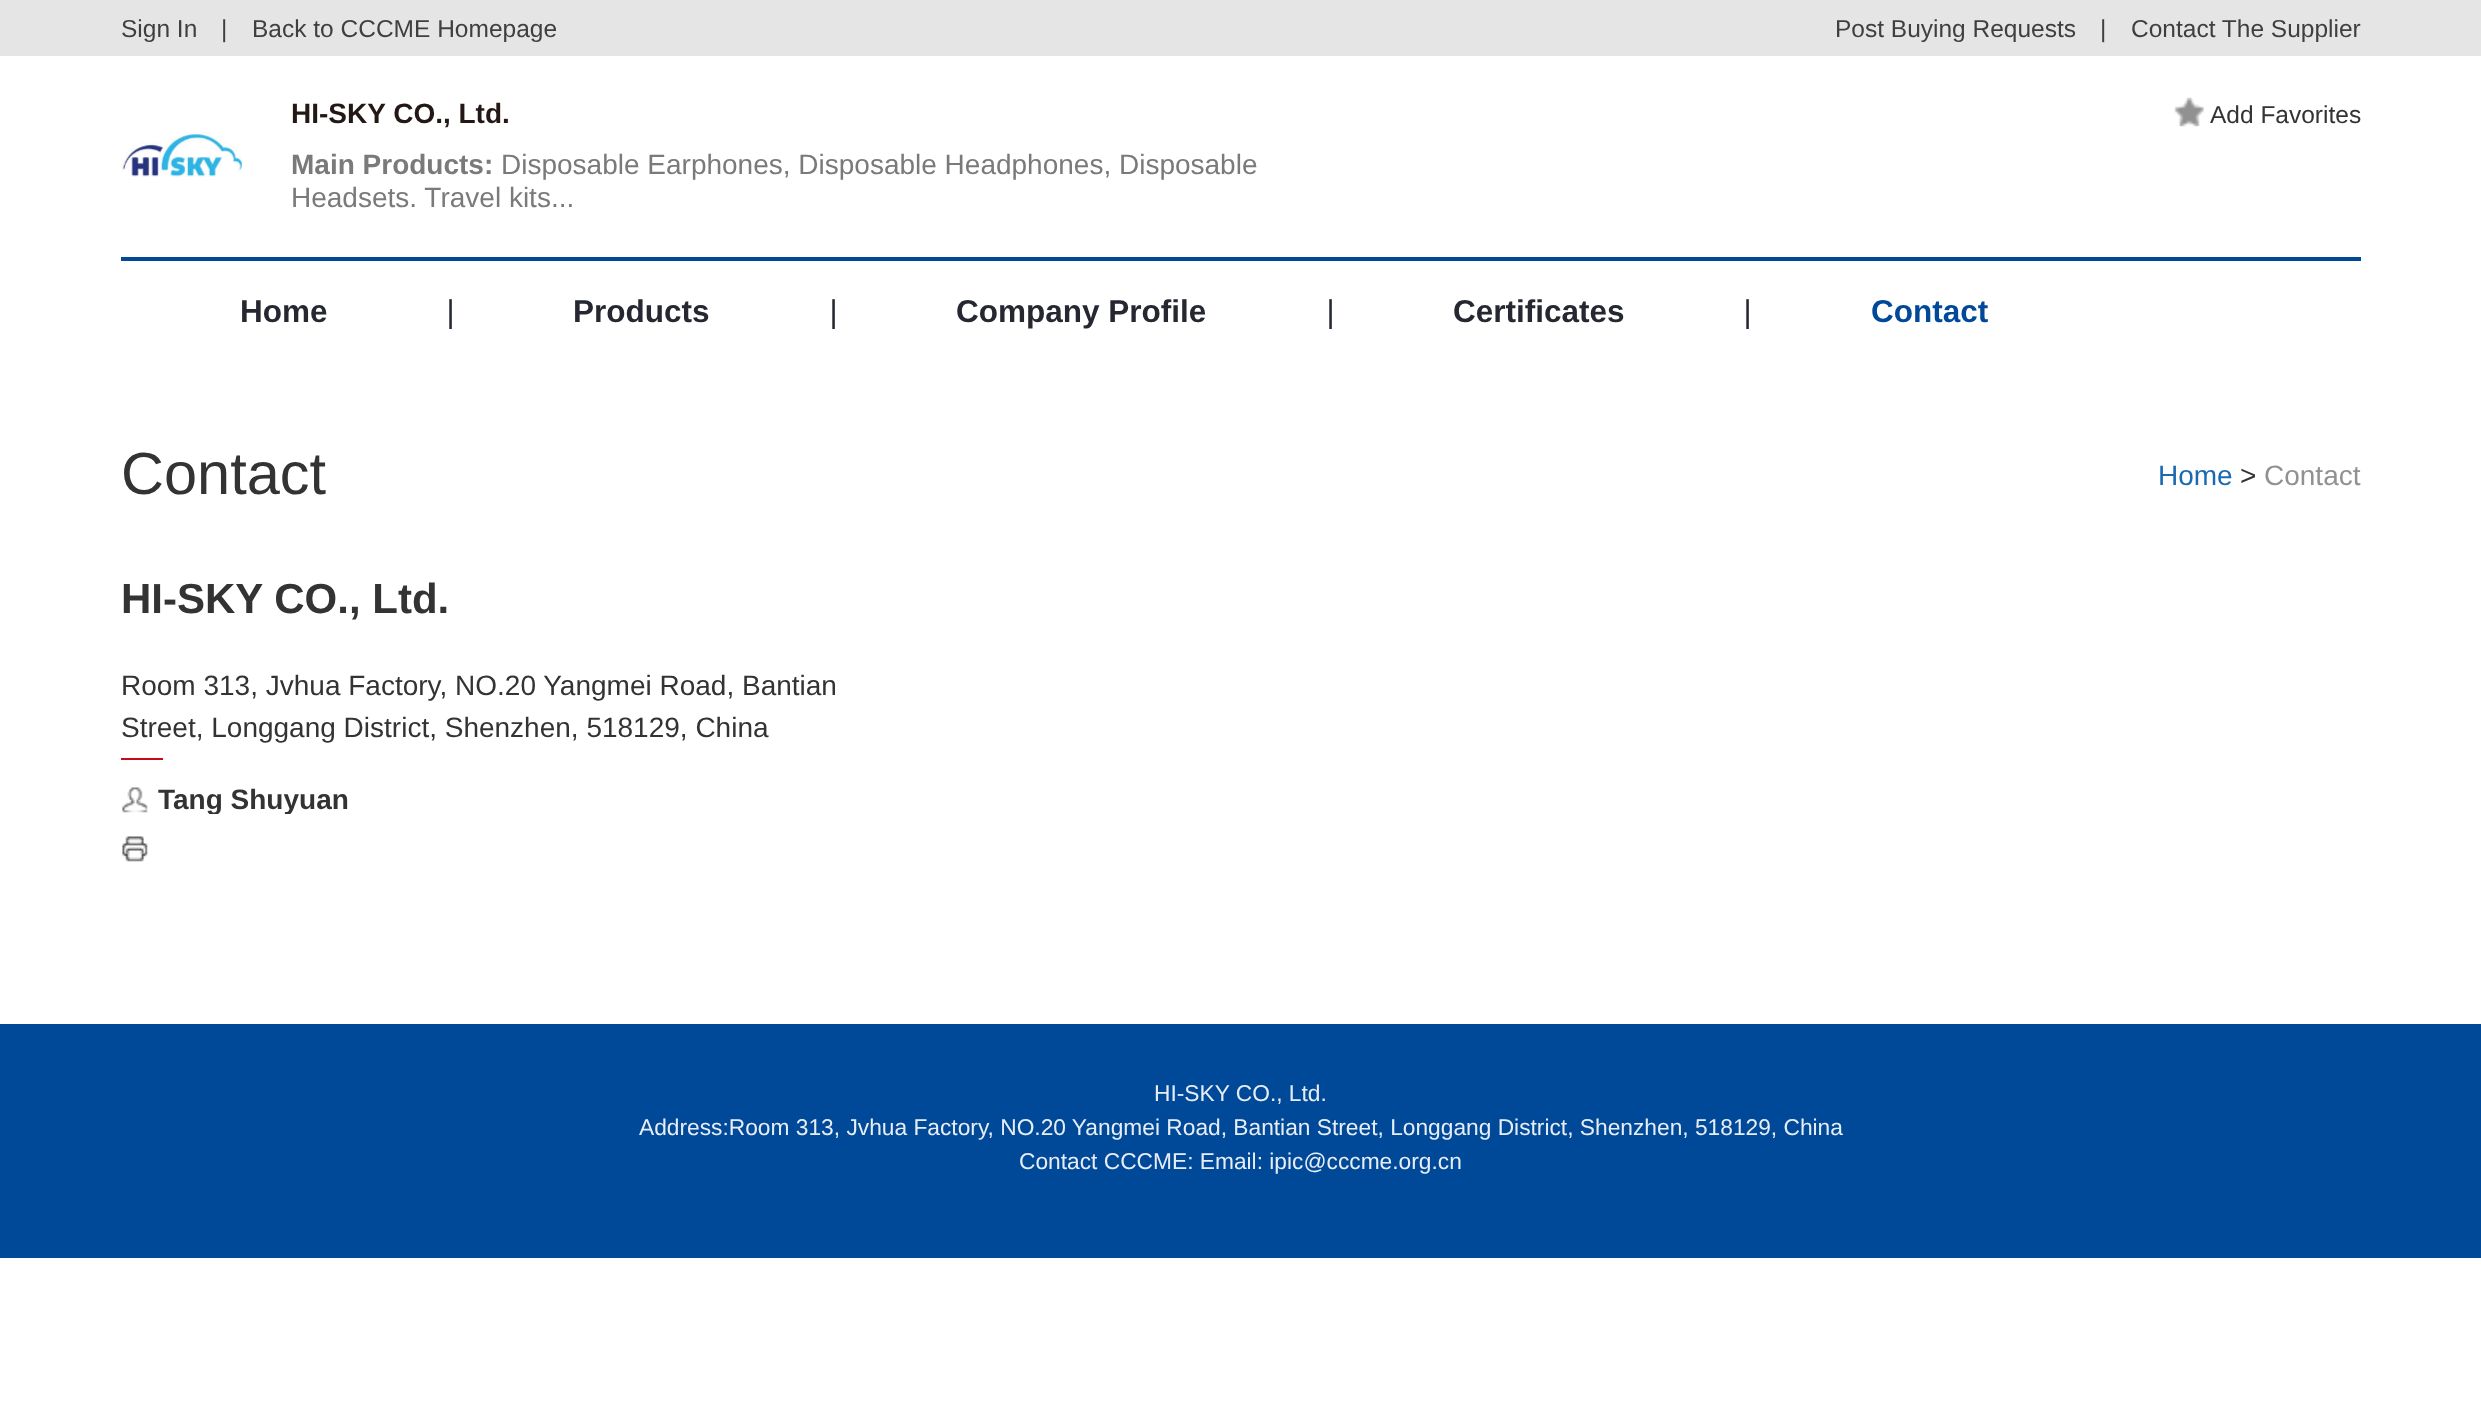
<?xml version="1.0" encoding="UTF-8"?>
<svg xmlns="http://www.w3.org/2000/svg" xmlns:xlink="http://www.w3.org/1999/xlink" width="2481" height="1406">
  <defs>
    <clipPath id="clip1"><rect x="121" y="786" width="784" height="28" /></clipPath>
  </defs>
  <rect width="100%" height="100%" fill="#ffffff" />
  <rect width="2481" height="56" fill="#e5e5e5" />
  <image x="2174" y="97" width="30" height="30" xlink:href="image1.png" />
  <image x="121" y="131" width="121" height="46" xlink:href="image2.png" />
  <rect x="121" y="257" width="2240" height="4" fill="#004898" />
  <rect x="121" y="758" width="42" height="2" fill="#c90915" />
  <image x="122" y="787" width="26" height="26" xlink:href="image3.png" />
  <image x="122" y="836" width="26" height="26" xlink:href="image4.png" />
  <rect y="1024" width="2481" height="234" fill="#004898" />
  <text x="121" y="37" style="font-family: Liberation Sans; font-size: 24.5px; fill: #3f3f3f">Sign In</text>
  <text x="221" y="37" style="font-family: Liberation Sans; font-size: 24.5px; fill: #3f3f3f">|</text>
  <text x="252" y="37" style="font-family: Liberation Sans; font-size: 24.5px; fill: #3f3f3f">Back to CCCME Homepage</text>
  <text x="1835" y="37" style="font-family: Liberation Sans; font-size: 24.5px; fill: #3f3f3f">Post Buying Requests</text>
  <text x="2100" y="37" style="font-family: Liberation Sans; font-size: 24.5px; fill: #3f3f3f">|</text>
  <text x="2131" y="37" style="font-family: Liberation Sans; font-size: 24.5px; fill: #3f3f3f">Contact The Supplier</text>
  <text x="291" y="123" style="font-family: Liberation Sans; font-size: 28px; font-weight: bold; fill: #231815">HI-SKY CO., Ltd.</text>
  <text x="291" y="174" style="font-family: Liberation Sans; font-size: 28px; font-weight: bold; fill: #7a7a7a">Main Products:</text>
  <text x="501" y="174" style="font-family: Liberation Sans; font-size: 28px; fill: #7a7a7a">Disposable Earphones, Disposable Headphones, Disposable</text>
  <text x="291" y="207" style="font-family: Liberation Sans; font-size: 28px; fill: #7a7a7a">Headsets. Travel kits...</text>
  <text x="2210" y="123" style="font-family: Liberation Sans; font-size: 24.5px; fill: #333333">Add Favorites</text>
  <text x="240" y="322" style="font-family: Liberation Sans; font-size: 31.5px; font-weight: bold; fill: #252831">Home</text>
  <text x="446" y="322" style="font-family: Liberation Sans; font-size: 31.5px; font-style: italic; fill: #252831">|</text>
  <text x="573" y="322" style="font-family: Liberation Sans; font-size: 31.5px; font-weight: bold; fill: #252831">Products</text>
  <text x="829" y="322" style="font-family: Liberation Sans; font-size: 31.5px; font-style: italic; fill: #252831">|</text>
  <text x="956" y="322" style="font-family: Liberation Sans; font-size: 31.5px; font-weight: bold; fill: #252831">Company Profile</text>
  <text x="1326" y="322" style="font-family: Liberation Sans; font-size: 31.5px; font-style: italic; fill: #252831">|</text>
  <text x="1453" y="322" style="font-family: Liberation Sans; font-size: 31.5px; font-weight: bold; fill: #252831">Certificates</text>
  <text x="1743" y="322" style="font-family: Liberation Sans; font-size: 31.5px; font-style: italic; fill: #252831">|</text>
  <text x="1871" y="322" style="font-family: Liberation Sans; font-size: 31.5px; font-weight: bold; fill: #004898">Contact</text>
  <text x="121" y="494" style="font-family: Liberation Sans; font-size: 59.5px; fill: #333333">Contact</text>
  <text x="2158" y="485" style="font-family: Liberation Sans; font-size: 28px; fill: #1a6ab2">Home</text>
  <text x="2240" y="485" style="font-family: Liberation Sans; font-size: 28px; fill: #333333">&gt;</text>
  <text x="2264" y="485" style="font-family: Liberation Sans; font-size: 28px; fill: #919191">Contact</text>
  <text x="121" y="613" style="font-family: Liberation Sans; font-size: 42px; font-weight: bold; fill: #333333">HI-SKY CO., Ltd.</text>
  <text x="121" y="695" style="font-family: Liberation Sans; font-size: 28px; fill: #333333">Room 313, Jvhua Factory, NO.20 Yangmei Road, Bantian</text>
  <text x="121" y="737" style="font-family: Liberation Sans; font-size: 28px; fill: #333333">Street, Longgang District, Shenzhen, 518129, China</text>
  <g clip-path="url(#clip1)">
    <text x="158" y="809" style="font-family: Liberation Sans; font-size: 28px; font-weight: bold; fill: #333333">Tang Shuyuan</text>
  </g>
  <text x="1154" y="1101" style="font-family: Liberation Sans; font-size: 22.75px; fill: #e6edf5">HI-SKY CO., Ltd.</text>
  <text x="639" y="1135" style="font-family: Liberation Sans; font-size: 22.75px; fill: #e6edf5">Address:Room 313, Jvhua Factory, NO.20 Yangmei Road, Bantian Street, Longgang District, Shenzhen, 518129, China</text>
  <text x="1019" y="1169" style="font-family: Liberation Sans; font-size: 22.75px; fill: #e6edf5">Contact CCCME: Email: ipic@cccme.org.cn</text>
</svg>
